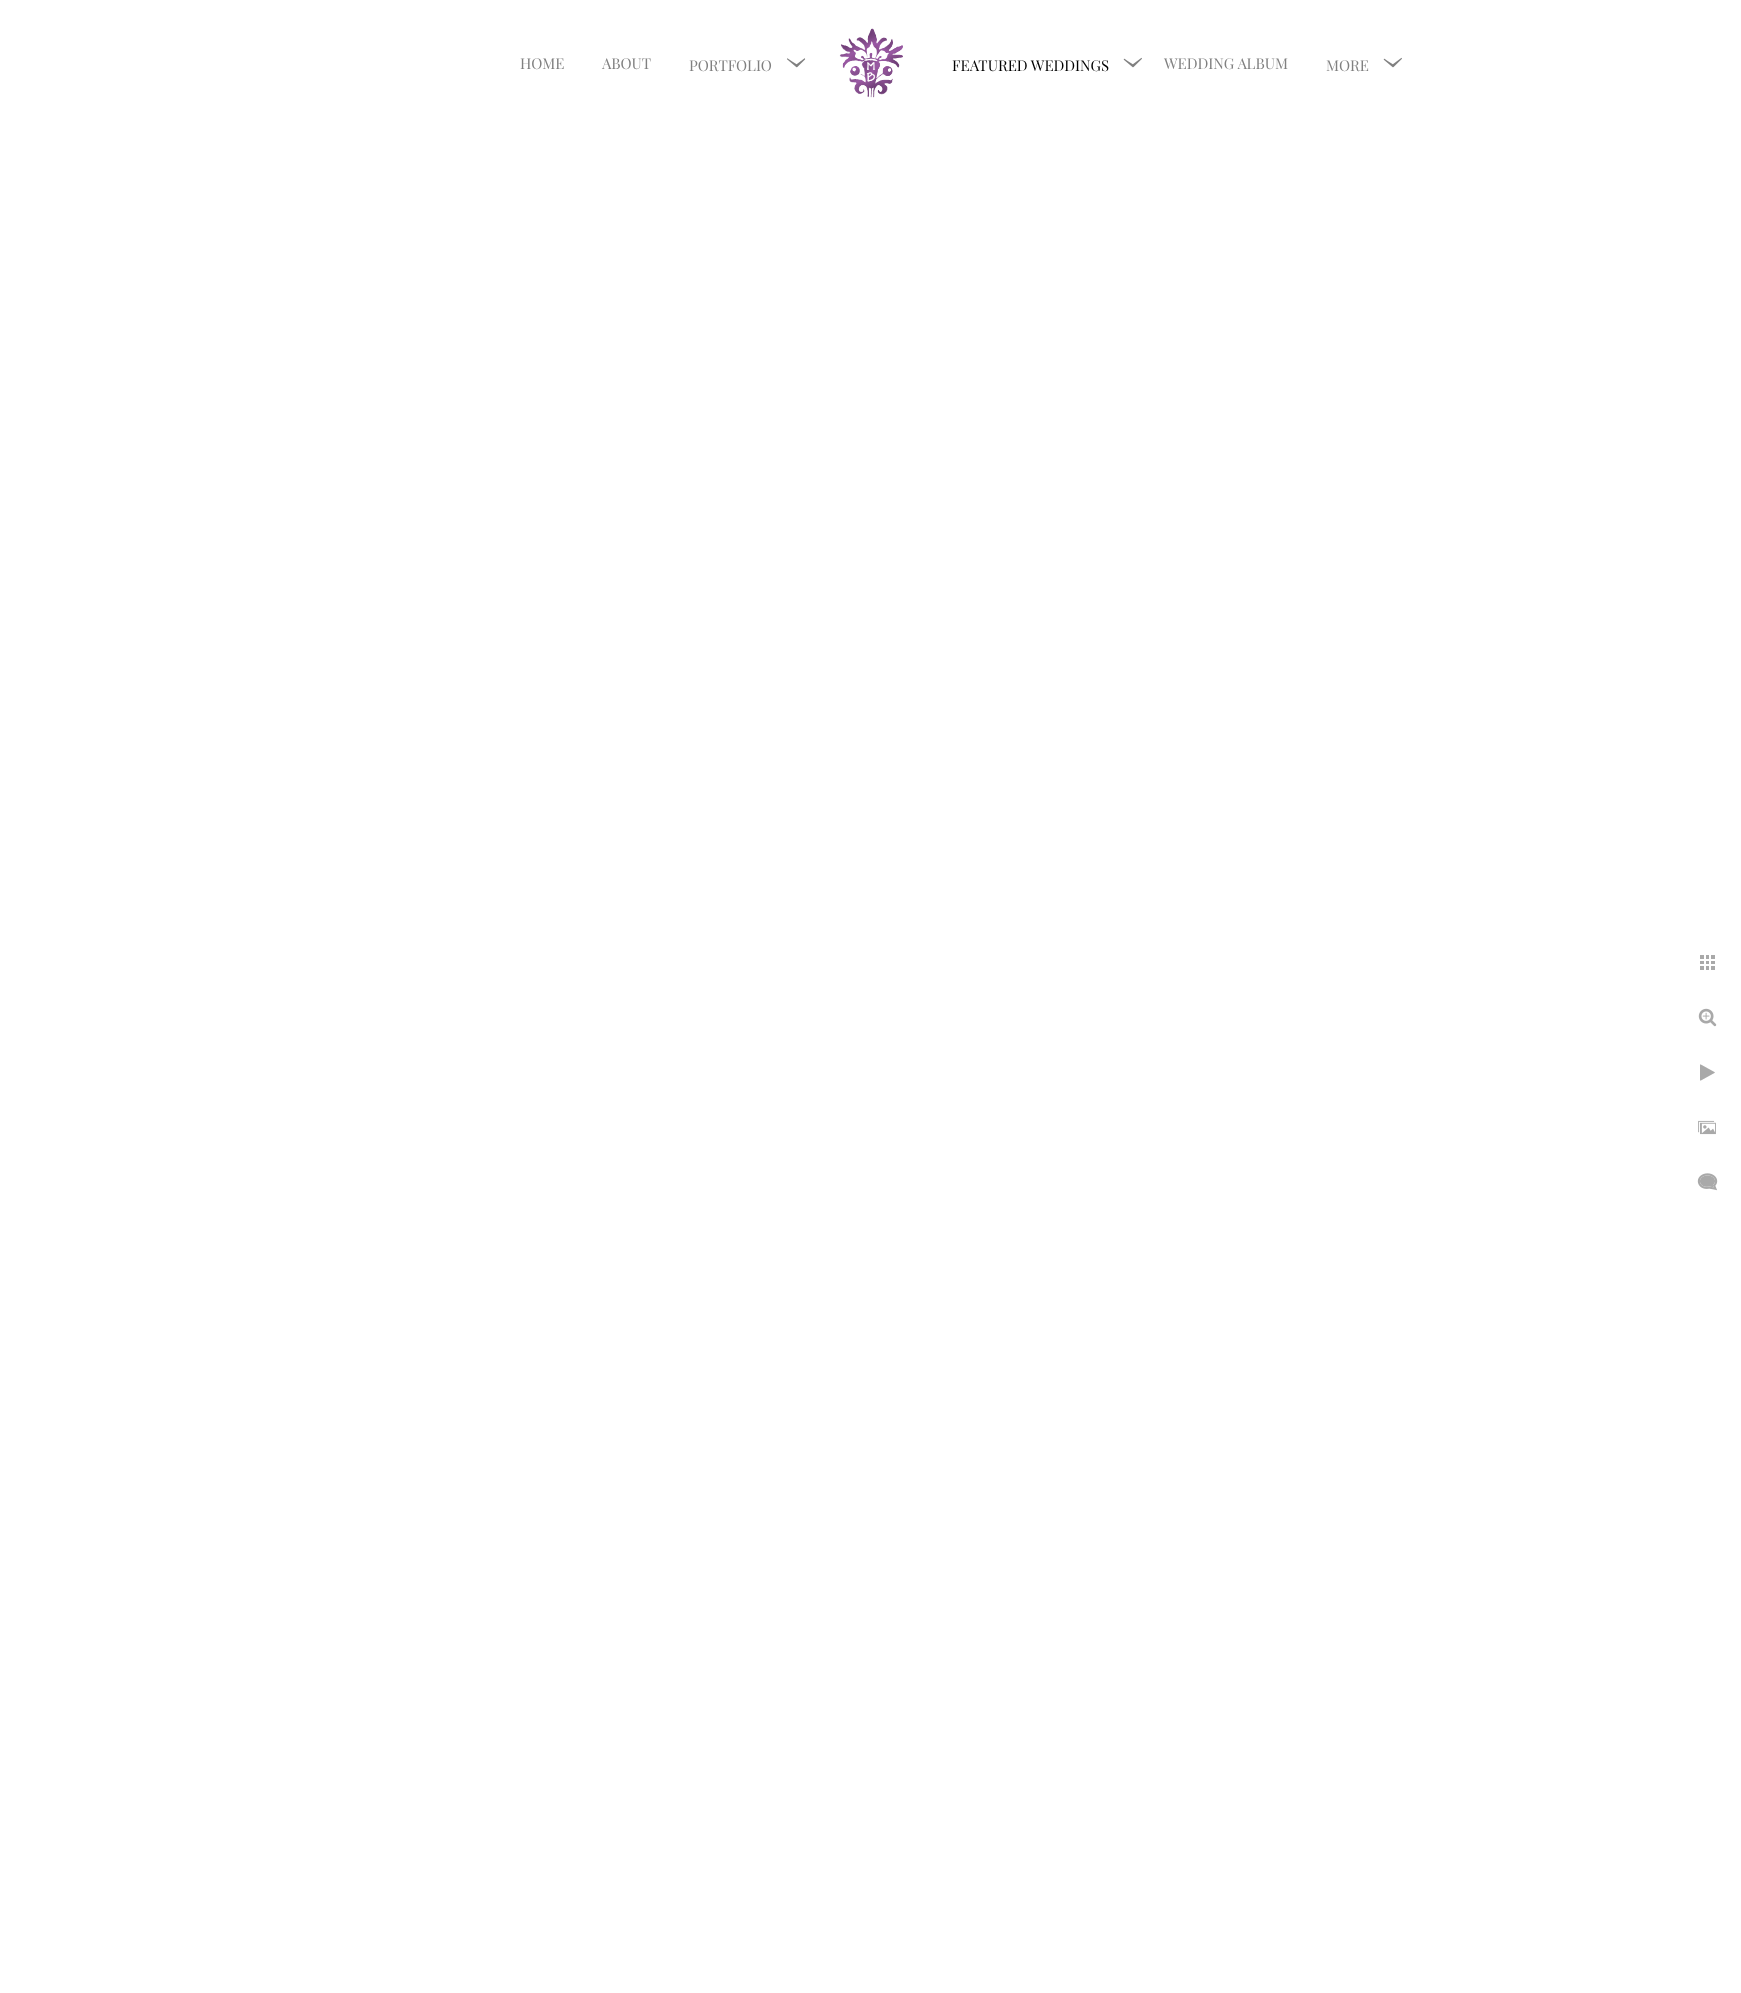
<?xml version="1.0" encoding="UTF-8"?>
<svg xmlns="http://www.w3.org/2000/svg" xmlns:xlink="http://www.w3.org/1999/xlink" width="1741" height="1993">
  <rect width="100%" height="100%" fill="#ffffff" />
  <image x="787" y="58" width="19" height="10" xlink:href="image1.png" />
  <image x="839" y="28" width="64" height="70" xlink:href="image2.png" />
  <image x="1123" y="57" width="19" height="11" xlink:href="image3.png" />
  <image x="1383" y="57" width="19" height="11" xlink:href="image3.png" />
  <image x="1700" y="955" width="15" height="15" xlink:href="image4.png" />
  <image x="1698" y="1008" width="19" height="19" xlink:href="image5.png" />
  <image x="1700" y="1064" width="15" height="17" xlink:href="image6.png" />
  <image x="1698" y="1120" width="18" height="15" xlink:href="image7.png" />
  <image x="1697" y="1173" width="21" height="18" xlink:href="image8.png" />
  <text x="520" y="69" style="font-family: Playfair Display SC; font-size: 15px; fill: #808080">HOME</text>
  <text x="602" y="69" style="font-family: Playfair Display SC; font-size: 15px; fill: #808080">ABOUT</text>
  <text x="689" y="71" style="font-family: Playfair Display SC; font-size: 15px; fill: #808080">PORTFOLIO</text>
  <text x="952" y="71" style="font-family: Playfair Display SC; font-size: 15px; fill: #000000">FEATURED WEDDINGS</text>
  <text x="1164" y="69" style="font-family: Playfair Display SC; font-size: 15px; fill: #808080">WEDDING ALBUM</text>
  <text x="1326" y="71" style="font-family: Playfair Display SC; font-size: 15px; fill: #808080">MORE</text>
</svg>
